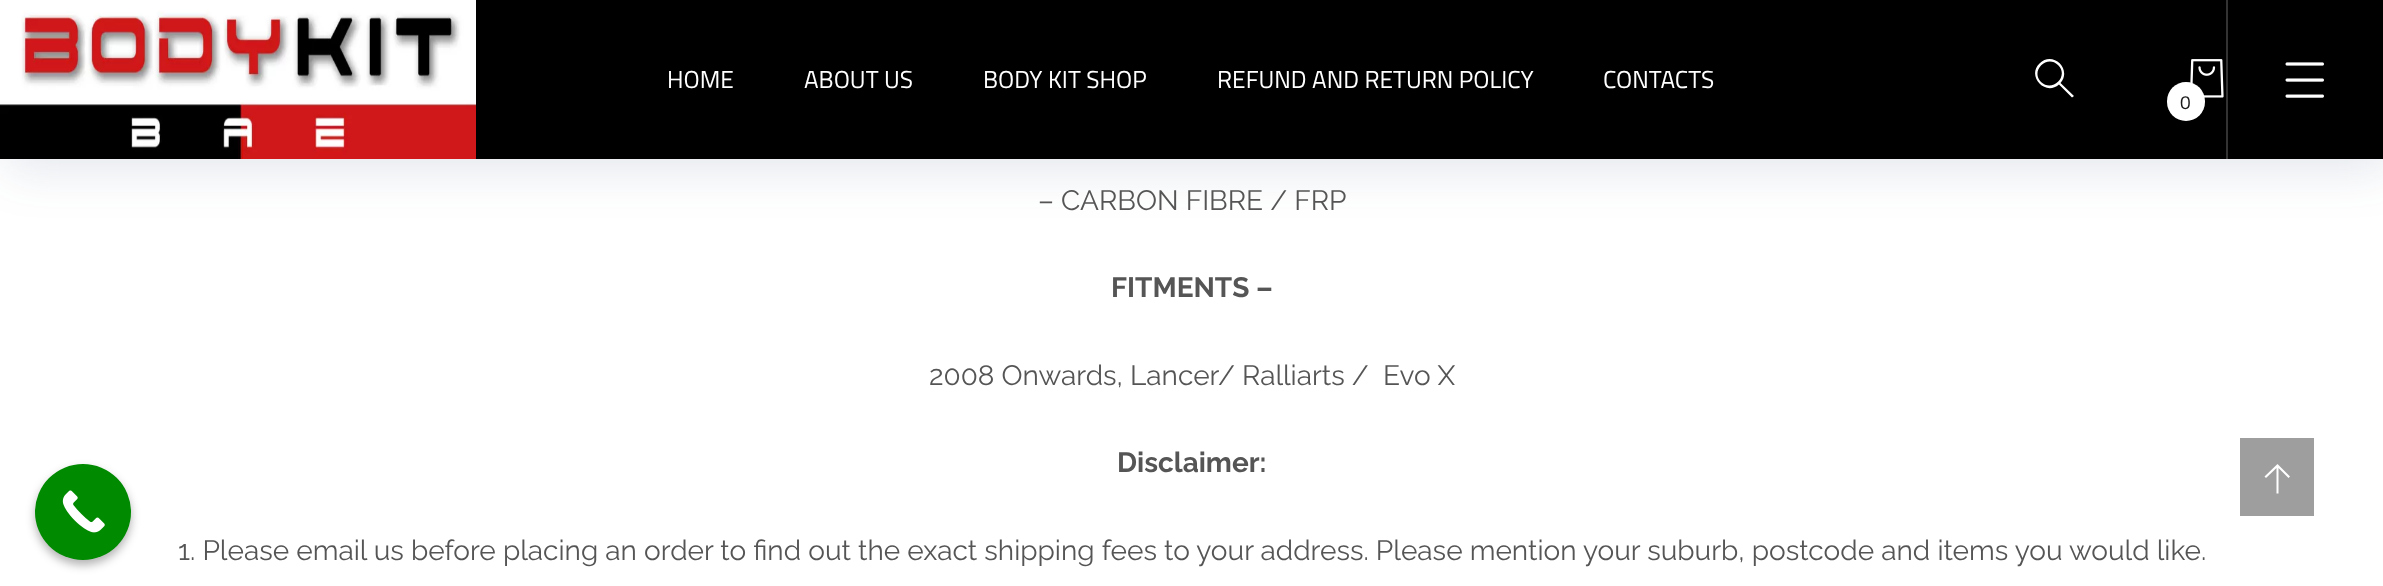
<?xml version="1.0" encoding="UTF-8"?>
<svg xmlns="http://www.w3.org/2000/svg" xmlns:xlink="http://www.w3.org/1999/xlink" width="2383" height="586">
  <rect width="100%" height="100%" fill="#ffffff" />
  <rect x="35" y="469" width="96" height="96" rx="48" fill="#000000" fill-opacity="0.3" filter="blur(5px)" />
  <circle cx="83" cy="512" r="48" fill="#008a00" />
  <image x="62" y="490" width="43" height="43" xlink:href="image1.png" />
  <rect x="7" y="7" width="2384" height="159" fill="#2a4371" fill-opacity="0.15" filter="blur(26px)" />
  <rect x="476" width="1907" height="159" fill="#000000" />
  <image x="0" y="0" width="476" height="159" xlink:href="image2.png" />
  <path d="M 2074 96 l -2 1.5 l -13 -13 c -14 12 -32.5 -8.5 -19.5 -21 c 13 -13 33 5.5 21 19.5 z m -33 -14 c 11.5 11 28.5 -6 17 -17 c -11 -11 -28 6 -17 17 z" fill="#ffffff" />
  <rect x="2226" width="2" height="159" fill="#333333" />
  <image x="2285" y="62" width="39" height="36" xlink:href="image3.png" />
  <image x="2190" y="59" width="34" height="39" xlink:href="image4.png" />
  <rect x="2167" y="82" width="38" height="39" rx="19" fill="#ffffff" />
  <rect x="2240" y="438" width="74" height="78" fill="#9f9e9e" />
  <path d="M 2290 476.5 l -1.5 1.5 l -10 -10 v 25.5 h -2 v -25.5 l -10.5 10 l -1.5 -1.5 l 13 -12.5 z" fill="#ffffff" />
  <text x="667" y="88" style="font-family: Titillium Web; font-size: 24.5px; fill: #ffffff">HOME</text>
  <text x="804" y="88" style="font-family: Titillium Web; font-size: 24.5px; fill: #ffffff">ABOUT US</text>
  <text x="983" y="88" style="font-family: Titillium Web; font-size: 24.5px; fill: #ffffff">BODY KIT SHOP</text>
  <text x="1217" y="88" style="font-family: Titillium Web; font-size: 24.5px; fill: #ffffff">REFUND AND RETURN POLICY</text>
  <text x="1603" y="88" style="font-family: Titillium Web; font-size: 24.5px; fill: #ffffff">CONTACTS</text>
  <text x="2180" y="109" style="font-family: Titillium Web; font-size: 19px; fill: #1a1a1a">0</text>
  <text x="1038" y="210" style="font-family: Raleway; font-size: 28px; fill: #555555">– CARBON FIBRE / FRP</text>
  <text x="1111" y="297" style="font-family: Raleway; font-size: 28px; font-weight: bold; fill: #555555">FITMENTS –</text>
  <text x="929" y="385" style="font-family: Raleway; font-size: 28px; fill: #555555" xml:space="preserve">2008 Onwards, Lancer/ Ralliarts /  Evo X</text>
  <text x="1117" y="472" style="font-family: Raleway; font-size: 28px; font-weight: bold; fill: #555555">Disclaimer:</text>
  <text x="178" y="560" style="font-family: Raleway; font-size: 28px; fill: #555555">1. Please email us before placing an order to find out the exact shipping fees to your address. Please mention your suburb, postcode and items you would like.</text>
</svg>
